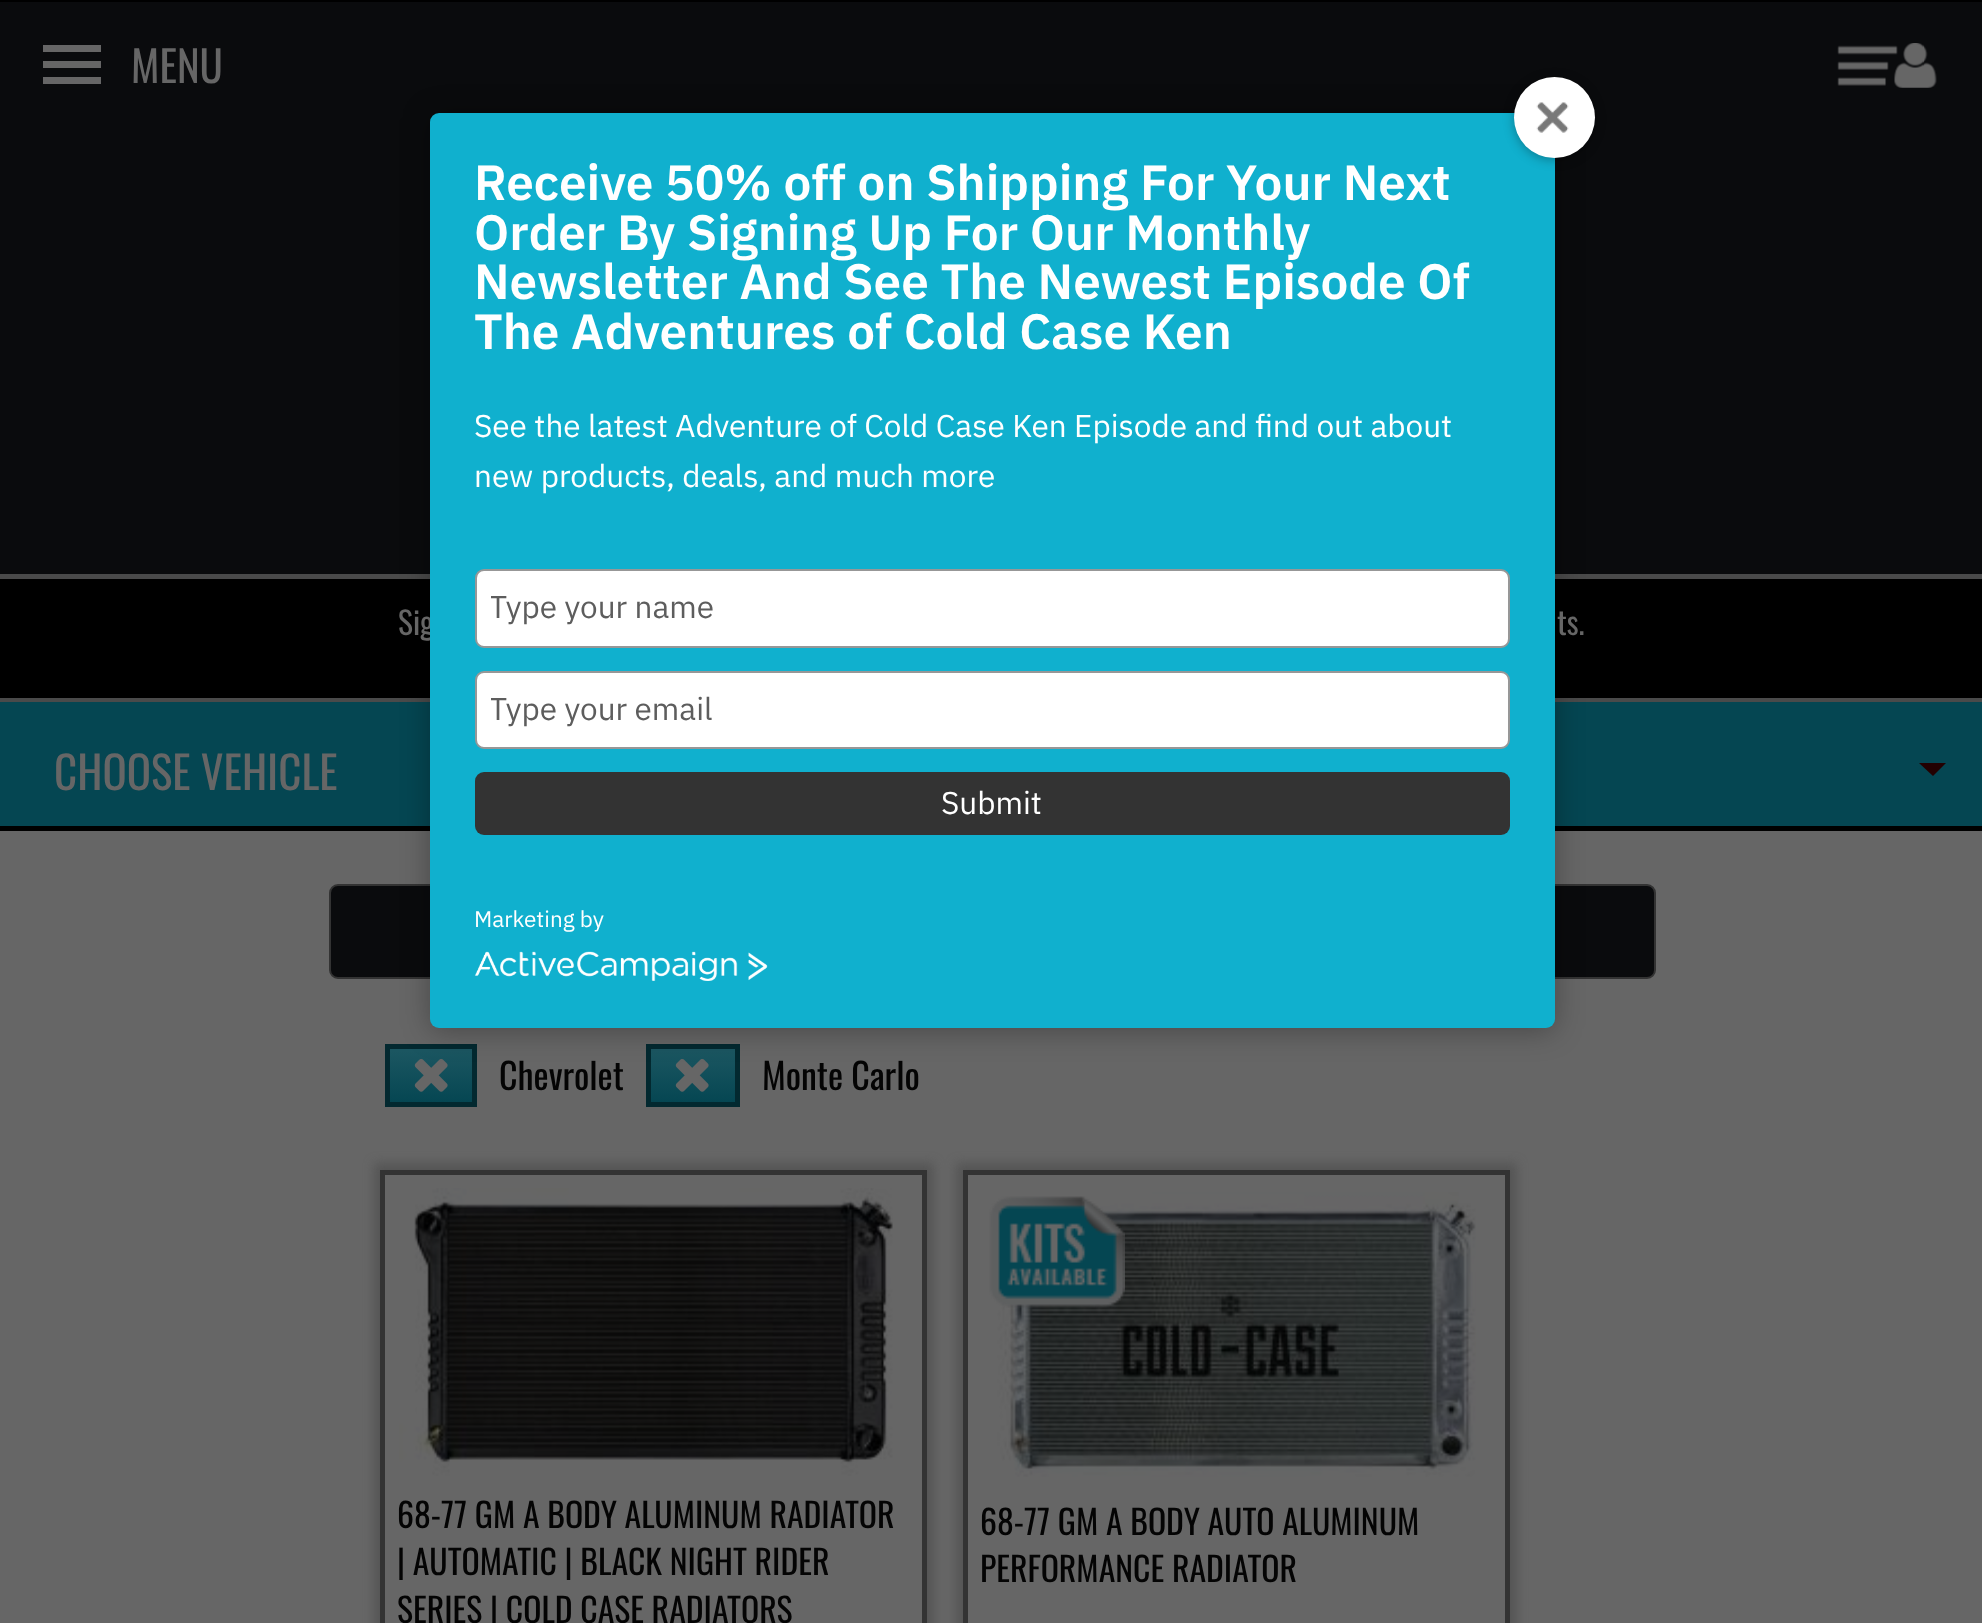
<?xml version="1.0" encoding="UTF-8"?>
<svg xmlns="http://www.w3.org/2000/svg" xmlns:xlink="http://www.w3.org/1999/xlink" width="1982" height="1623">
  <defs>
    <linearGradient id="g1" gradientUnits="userSpaceOnUse" x1="431" y1="1049" x2="431" y2="1103"><stop offset="0.05" stop-color="#1b5661" /><stop offset="1" stop-color="#054652" /></linearGradient>
    <linearGradient id="g2" gradientUnits="userSpaceOnUse" x1="693" y1="1049" x2="693" y2="1103"><stop offset="0.05" stop-color="#1b5661" /><stop offset="1" stop-color="#054652" /></linearGradient>
    <clipPath id="clip1"><rect x="491" y="587" width="1003" height="41" /></clipPath>
    <clipPath id="clip2"><rect x="491" y="689" width="1003" height="40" /></clipPath>
  </defs>
  <rect width="100%" height="100%" fill="#666666" />
  <rect y="2" width="1982" height="572" fill="#0a0b0d" />
  <rect width="1982" height="2" fill="#000000" />
  <rect x="43" y="77" width="58" height="7" fill="#666666" />
  <rect x="43" y="61" width="58" height="7" fill="#666666" />
  <rect x="43" y="45" width="58" height="7" fill="#666666" />
  <image x="1837" y="43" width="100" height="45" xlink:href="image1.png" />
  <rect y="579" width="1982" height="119" fill="#000000" />
  <rect y="574" width="1982" height="5" fill="#4a4a4a" />
  <rect y="698" width="1982" height="4" fill="#4a4a4a" />
  <rect y="702" width="1982" height="124" fill="#054652" />
  <rect y="826" width="1982" height="5" fill="#000000" />
  <path d="M 1919 763 h 27 l -13 13 z" fill="#230001" />
  <rect x="330" y="885" width="1325" height="93" rx="8" fill="#0a0b0d" stroke="#333333" stroke-width="2" />
  <rect x="390" y="1049" width="82" height="53" fill="url(#g1)" />
  <rect x="387.5" y="1046.5" width="87" height="58" fill="none" stroke="#032930" stroke-width="5" />
  <image x="414" y="1058" width="34" height="34" xlink:href="image2.png" />
  <rect x="651" y="1049" width="84" height="53" fill="url(#g2)" />
  <rect x="648.5" y="1046.5" width="89" height="58" fill="none" stroke="#032930" stroke-width="5" />
  <image x="675" y="1058" width="34" height="34" xlink:href="image2.png" />
  <rect x="374" y="1163" width="560" height="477" fill="#444444" fill-opacity="0.5" filter="blur(5.5px)" />
  <rect x="382.5" y="1172.5" width="542" height="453" fill="#666666" stroke="#333333" stroke-width="5" />
  <image x="399" y="1188" width="494" height="288" xlink:href="image3.png" />
  <rect x="956" y="1163" width="561" height="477" fill="#444444" fill-opacity="0.5" filter="blur(5.5px)" />
  <rect x="965.5" y="1172.5" width="542" height="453" fill="#666666" stroke="#333333" stroke-width="5" />
  <image x="994" y="1192" width="482" height="285" xlink:href="image4.png" />
  <image x="989" y="1196" width="136" height="112" xlink:href="image5.png" />
  <rect x="430" y="115" width="1125" height="916" rx="9" fill="#000000" fill-opacity="0.3" filter="blur(14.5px)" />
  <text x="131" y="83" style="font-family: Oswald; font-size: 43px; fill: #666666">MENU</text>
  <text x="398" y="635" style="font-family: Oswald; font-size: 31.5px; fill: #666666">Sig</text>
  <text x="1557" y="635" style="font-family: Oswald; font-size: 31.5px; fill: #666666">ts.</text>
  <text x="54" y="790" style="font-family: Oswald; font-size: 45px; fill: #666666">CHOOSE VEHICLE</text>
  <text x="499" y="1090" style="font-family: Oswald; font-size: 36px; fill: #040404">Chevrolet</text>
  <text x="762" y="1090" style="font-family: Oswald; font-size: 36px; fill: #040404">Monte Carlo</text>
  <text x="397" y="1528" style="font-family: Oswald; font-size: 33.75px; fill: #040404">68-77 GM A BODY ALUMINUM RADIATOR</text>
  <text x="397" y="1575" style="font-family: Oswald; font-size: 33.75px; fill: #040404">| AUTOMATIC | BLACK NIGHT RIDER</text>
  <text x="397" y="1623" style="font-family: Oswald; font-size: 33.75px; fill: #040404">SERIES | COLD CASE RADIATORS</text>
  <text x="980" y="1535" style="font-family: Oswald; font-size: 33.75px; fill: #040404">68-77 GM A BODY AUTO ALUMINUM</text>
  <text x="980" y="1582" style="font-family: Oswald; font-size: 33.75px; fill: #040404">PERFORMANCE RADIATOR</text>
  <rect x="430" y="113" width="1125" height="915" rx="9" fill="#10b0ce" />
  <rect x="1514" y="79" width="81" height="81" rx="40.5" fill="#000000" fill-opacity="0.3" filter="blur(5.5px)" />
  <circle cx="1554.5" cy="117.5" r="40.5" fill="#ffffff" />
  <image x="1536" y="102" width="33" height="31" xlink:href="image6.png" />
  <text x="474" y="200" style="font-family: IBM Plex Sans; font-size: 49.5px; font-weight: 600; fill: #ffffff">Receive 50% off on Shipping For Your Next</text>
  <text x="474" y="250" style="font-family: IBM Plex Sans; font-size: 49.5px; font-weight: 600; fill: #ffffff">Order By Signing Up For Our Monthly</text>
  <text x="474" y="299" style="font-family: IBM Plex Sans; font-size: 49.5px; font-weight: 600; fill: #ffffff">Newsletter And See The Newest Episode Of</text>
  <text x="474" y="349" style="font-family: IBM Plex Sans; font-size: 49.5px; font-weight: 600; fill: #ffffff">The Adventures of Cold Case Ken</text>
  <text x="474" y="437" style="font-family: IBM Plex Sans; font-size: 31.5px; fill: #ffffff">See the latest Adventure of Cold Case Ken Episode and find out about</text>
  <text x="474" y="487" style="font-family: IBM Plex Sans; font-size: 31.5px; fill: #ffffff">new products, deals, and much more</text>
  <rect x="476" y="570" width="1033" height="77" rx="8" fill="#ffffff" stroke="#979797" stroke-width="2" />
  <g clip-path="url(#clip1)">
    <text x="489" y="618" style="font-family: IBM Plex Sans; font-size: 31.5px; fill: #5d5d5d">Type your name</text>
  </g>
  <rect x="476" y="672" width="1033" height="76" rx="8" fill="#ffffff" stroke="#979797" stroke-width="2" />
  <g clip-path="url(#clip2)">
    <text x="489" y="720" style="font-family: IBM Plex Sans; font-size: 31.5px; fill: #5d5d5d">Type your email</text>
  </g>
  <rect x="475" y="772" width="1035" height="63" rx="9" fill="#333333" />
  <text x="941" y="814" style="font-family: IBM Plex Sans; font-size: 31.5px; fill: #ffffff">Submit</text>
  <text x="474" y="927" style="font-family: IBM Plex Sans; font-size: 22.5px; fill: #ffffff">Marketing by</text>
  <image x="474" y="951" width="294" height="30" xlink:href="image7.png" />
</svg>
